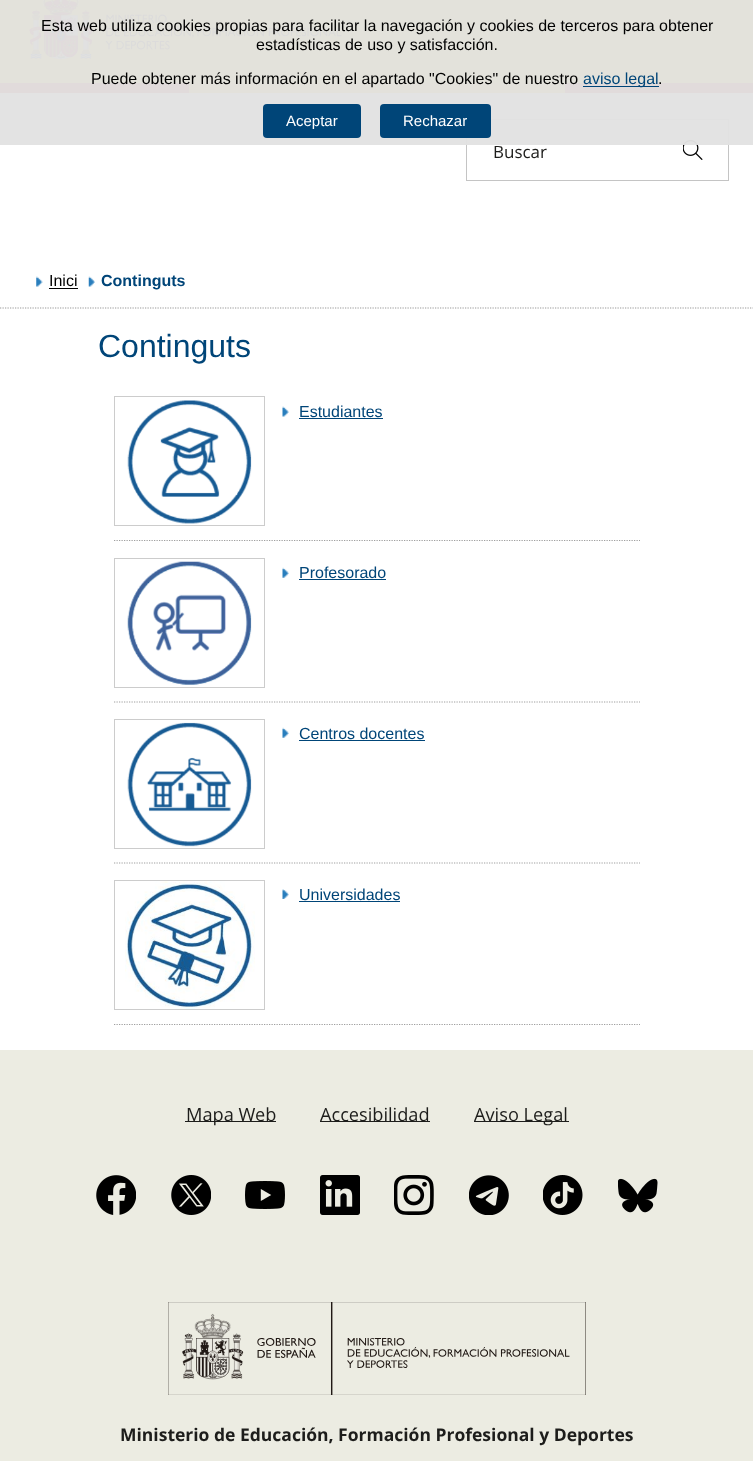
<?xml version="1.0" encoding="UTF-8"?>
<svg xmlns="http://www.w3.org/2000/svg" xmlns:xlink="http://www.w3.org/1999/xlink" width="753" height="1461">
  <defs>
    <clipPath id="clip1"><rect x="114" y="380" width="526" height="645" /></clipPath>
  </defs>
  <rect width="100%" height="100%" fill="#ffffff" />
  <rect width="753" height="83" fill="#ffdb00" />
  <rect y="83" width="189" height="10" fill="#ad1519" />
  <rect x="189" y="83" width="376" height="10" fill="#fabd00" />
  <rect x="565" y="83" width="188" height="10" fill="#ad1519" />
  <image x="29" y="0" width="313" height="60" xlink:href="image1.png" />
  <rect x="466.5" y="119.5" width="262" height="61" fill="none" stroke="#c4c4c4" />
  <image x="683" y="140" width="20" height="20" xlink:href="image2.png" />
  <rect width="753" height="145" fill="#e2e2e2" fill-opacity="0.97" />
  <rect x="583" y="86" width="76" height="1" fill="#004578" />
  <rect x="263" y="104" width="98" height="34" rx="4" fill="#004578" />
  <rect x="380" y="104" width="111" height="34" rx="4" fill="#004578" />
  <path d="M 0 308 h 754" fill="none" stroke="#999999" stroke-width="1.2" stroke-dasharray="1.25 1.25" />
  <image x="36" y="276" width="7" height="11" xlink:href="image3.png" />
  <rect x="49" y="288" width="29" height="1" fill="#000000" />
  <image x="88" y="276" width="7" height="11" xlink:href="image4.png" />
  <path d="M 114 540.5 h 526" fill="none" stroke="#9f9f9f" stroke-width="1.2" stroke-dasharray="1.25 1.25" />
  <rect x="114.5" y="396.5" width="150" height="129" fill="none" stroke="#cccccc" />
  <image x="127" y="400" width="125" height="124" xlink:href="image5.png" />
  <image x="282" y="406" width="7" height="11" xlink:href="image6.png" />
  <rect x="299" y="418" width="84" height="1" fill="#004578" />
  <path d="M 114 702 h 526" fill="none" stroke="#9f9f9f" stroke-width="1.2" stroke-dasharray="1.25 1.25" />
  <rect x="114.5" y="558.5" width="150" height="129" fill="none" stroke="#cccccc" />
  <image x="127" y="561" width="125" height="124" xlink:href="image7.png" />
  <image x="282" y="567" width="7" height="11" xlink:href="image8.png" />
  <rect x="299" y="579" width="87" height="1" fill="#004578" />
  <path d="M 114 863 h 526" fill="none" stroke="#9f9f9f" stroke-width="1.2" stroke-dasharray="1.25 1.25" />
  <rect x="114.5" y="719.5" width="150" height="129" fill="none" stroke="#cccccc" />
  <image x="127" y="722" width="125" height="125" xlink:href="image9.png" />
  <image x="282" y="727" width="7" height="11" xlink:href="image8.png" />
  <rect x="299" y="740" width="126" height="1" fill="#004578" />
  <g clip-path="url(#clip1)">
    <path d="M 114 1024.5 h 526" fill="none" stroke="#9f9f9f" stroke-width="1.2" stroke-dasharray="1.25 1.25" />
  </g>
  <rect x="114.5" y="880.5" width="150" height="129" fill="none" stroke="#cccccc" />
  <image x="125" y="881" width="130" height="128" xlink:href="image10.png" />
  <image x="282" y="889" width="7" height="10" xlink:href="image11.png" />
  <rect x="299" y="901" width="101" height="1" fill="#004578" />
  <rect y="1050" width="753" height="411" fill="#ecece2" />
  <rect x="185" y="1121" width="91" height="1" fill="#1d1d1b" />
  <rect x="320" y="1121" width="110" height="1" fill="#1d1d1b" />
  <rect x="474" y="1121" width="95" height="1" fill="#1d1d1b" />
  <image x="96" y="1175" width="40" height="40" xlink:href="image12.png" />
  <image x="171" y="1175" width="40" height="40" xlink:href="image13.png" />
  <image x="245" y="1181" width="40" height="28" xlink:href="image14.png" />
  <image x="320" y="1175" width="40" height="40" xlink:href="image15.png" />
  <image x="394" y="1175" width="40" height="40" xlink:href="image16.png" />
  <image x="469" y="1175" width="40" height="40" xlink:href="image17.png" />
  <image x="543" y="1175" width="40" height="40" xlink:href="image18.png" />
  <image x="618" y="1178" width="40" height="35" xlink:href="image19.png" />
  <image x="168" y="1302" width="418" height="93" xlink:href="image20.png" />
  <text x="41" y="31" style="font-family: Liberation Sans; font-size: 16px; fill: #000000">Esta web utiliza cookies propias para facilitar la navegación y cookies de terceros para obtener</text>
  <text x="256" y="50" style="font-family: Liberation Sans; font-size: 16px; fill: #000000">estadísticas de uso y satisfacción.</text>
  <text x="91" y="84" style="font-family: Liberation Sans; font-size: 16px; fill: #000000">Puede obtener más información en el apartado "Cookies" de nuestro</text>
  <text x="583" y="84" style="font-family: Liberation Sans; font-size: 16px; fill: #004578">aviso legal</text>
  <text x="658" y="84" style="font-family: Liberation Sans; font-size: 16px; fill: #000000">.</text>
  <text x="286" y="126" style="font-family: Liberation Sans; font-size: 15px; fill: #ffffff">Aceptar</text>
  <text x="403" y="126" style="font-family: Liberation Sans; font-size: 15px; fill: #ffffff">Rechazar</text>
  <text x="493" y="158" style="font-family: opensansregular; font-size: 17.5px; fill: #1d1d1b">Buscar</text>
  <text x="49" y="286" style="font-family: Liberation Sans; font-size: 16px; fill: #000000">Inici</text>
  <text x="101" y="286" style="font-family: Liberation Sans; font-size: 16px; font-weight: bold; fill: #004578">Continguts</text>
  <text x="98" y="357" style="font-family: Liberation Sans; font-size: 32px; fill: #004578">Continguts</text>
  <text x="299" y="417" style="font-family: Liberation Sans; font-size: 16px; fill: #004578">Estudiantes</text>
  <text x="299" y="578" style="font-family: Liberation Sans; font-size: 16px; fill: #004578">Profesorado</text>
  <text x="299" y="739" style="font-family: Liberation Sans; font-size: 16px; fill: #004578">Centros docentes</text>
  <text x="299" y="900" style="font-family: Liberation Sans; font-size: 16px; fill: #004578">Universidades</text>
  <text x="186" y="1121" style="font-family: opensansregular; font-size: 18.75px; fill: #1d1d1b">Mapa Web</text>
  <text x="320" y="1121" style="font-family: opensansregular; font-size: 18.75px; fill: #1d1d1b">Accesibilidad</text>
  <text x="474" y="1121" style="font-family: opensansregular; font-size: 18.75px; fill: #1d1d1b">Aviso Legal</text>
  <text x="120" y="1441" style="font-family: Open Sans; font-size: 17.5px; font-weight: bold; fill: #1d1d1b">Ministerio de Educación, Formación Profesional y Deportes</text>
</svg>
